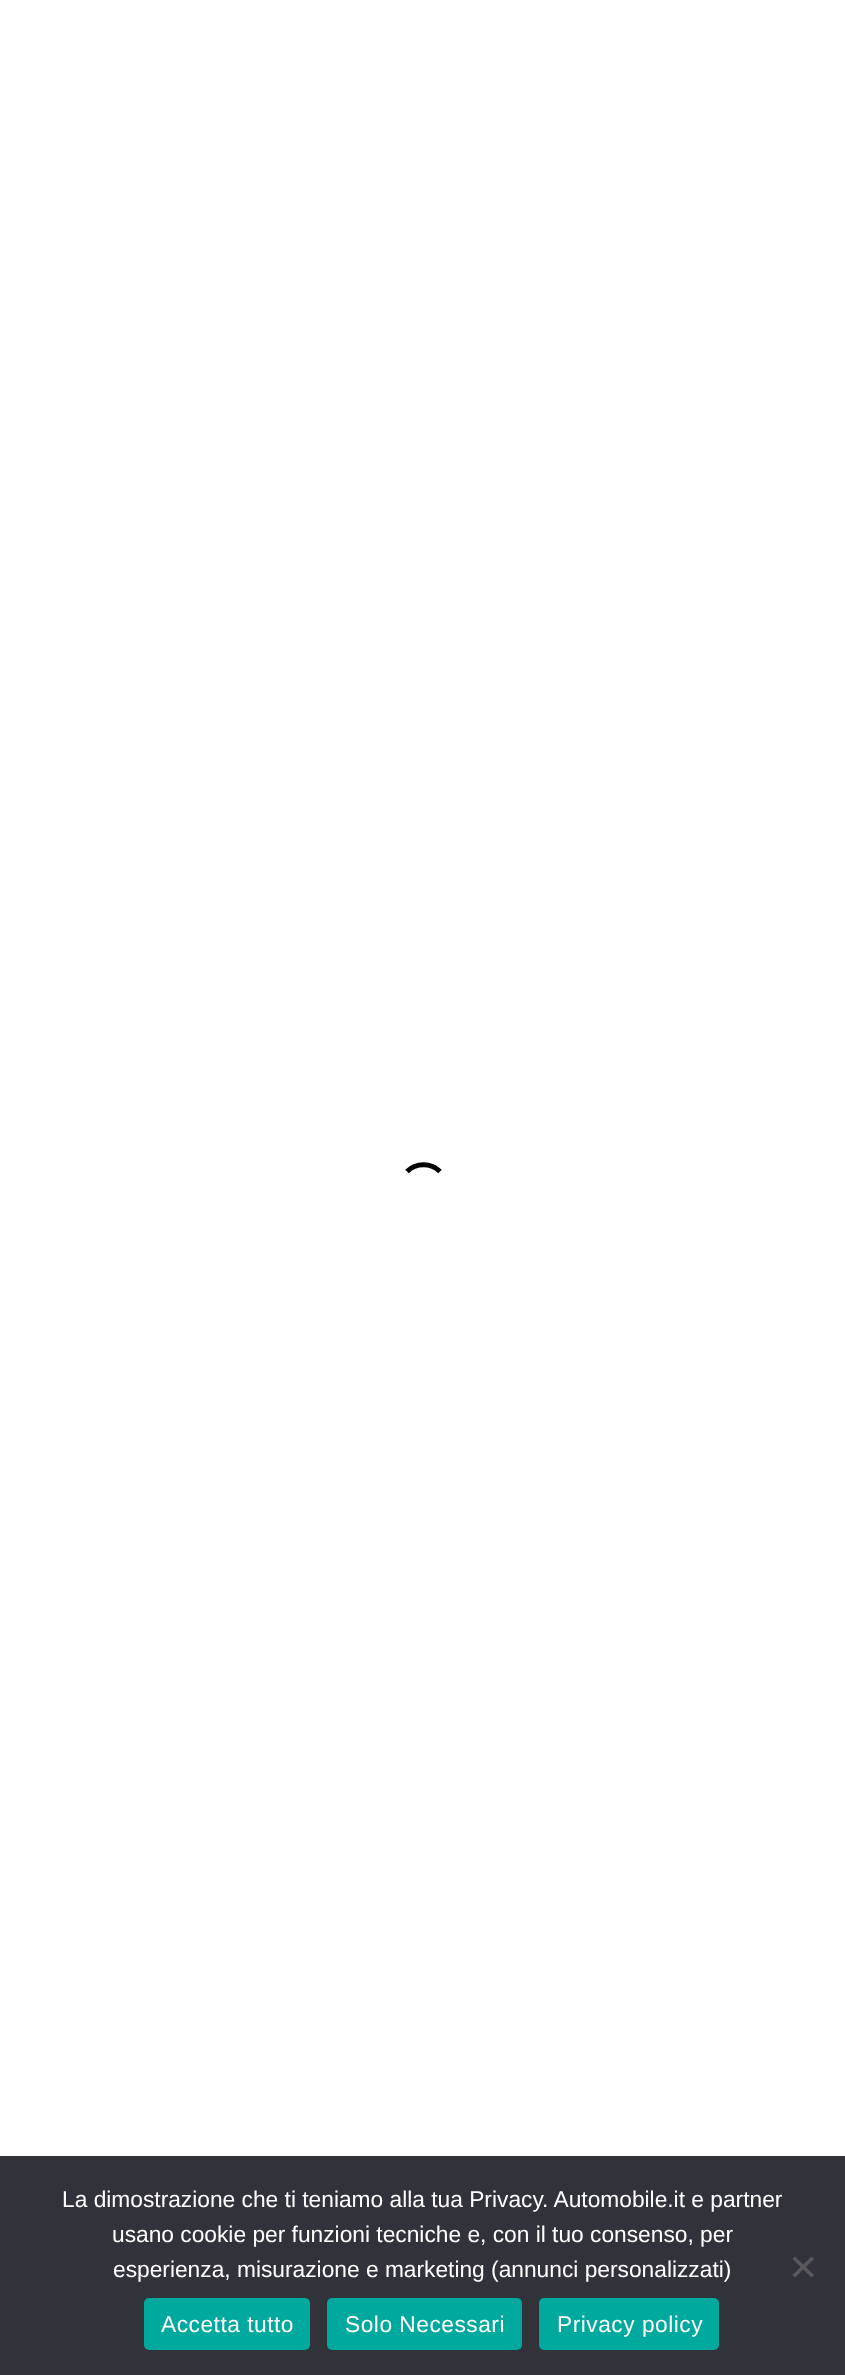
<?xml version="1.0" encoding="UTF-8"?>
<svg xmlns="http://www.w3.org/2000/svg" xmlns:xlink="http://www.w3.org/1999/xlink" width="845" height="2375">
  <rect width="100%" height="100%" fill="#ffffff" />
  <image x="11" y="70" width="453" height="61" xlink:href="image1.png" />
  <image x="798" y="87" width="19" height="17" xlink:href="image2.png" />
  <path d="M 407 1171.5 c 9 -9 24 -9 33 0" fill="none" stroke="#000000" stroke-width="5.2" />
  <rect y="2156" width="845" height="219" fill="#32323a" />
  <path d="M 811.5 2256.5 l 2.5 2.5 l -19 18.5 l -2.5 -2.5 z" fill="#59595d" />
  <path d="M 792.5 2259 l 2.5 -2.5 l 19 18.5 l -2.5 2.5 z" fill="#59595d" />
  <rect x="144" y="2298" width="166" height="52" rx="5" fill="#00a99d" />
  <rect x="327" y="2298" width="195" height="52" rx="5" fill="#00a99d" />
  <rect x="539" y="2298" width="180" height="52" rx="5" fill="#00a99d" />
  <text x="62" y="2207" style="font-family: Liberation Sans; font-size: 22.75px; fill: #ffffff">La dimostrazione che ti teniamo alla tua Privacy. Automobile.it e partner</text>
  <text x="112" y="2242" style="font-family: Liberation Sans; font-size: 22.75px; fill: #ffffff">usano cookie per funzioni tecniche e, con il tuo consenso, per</text>
  <text x="113" y="2277" style="font-family: Liberation Sans; font-size: 22.75px; fill: #ffffff">esperienza, misurazione e marketing (annunci personalizzati)</text>
  <text x="161" y="2332" style="font-family: Liberation Sans; font-size: 22.75px; letter-spacing: 0.5px; fill: #ffffff">Accetta tutto</text>
  <text x="345" y="2332" style="font-family: Liberation Sans; font-size: 22.75px; letter-spacing: 0.5px; fill: #ffffff">Solo Necessari</text>
  <text x="557" y="2332" style="font-family: Liberation Sans; font-size: 22.75px; letter-spacing: 0.5px; fill: #ffffff">Privacy policy</text>
</svg>
